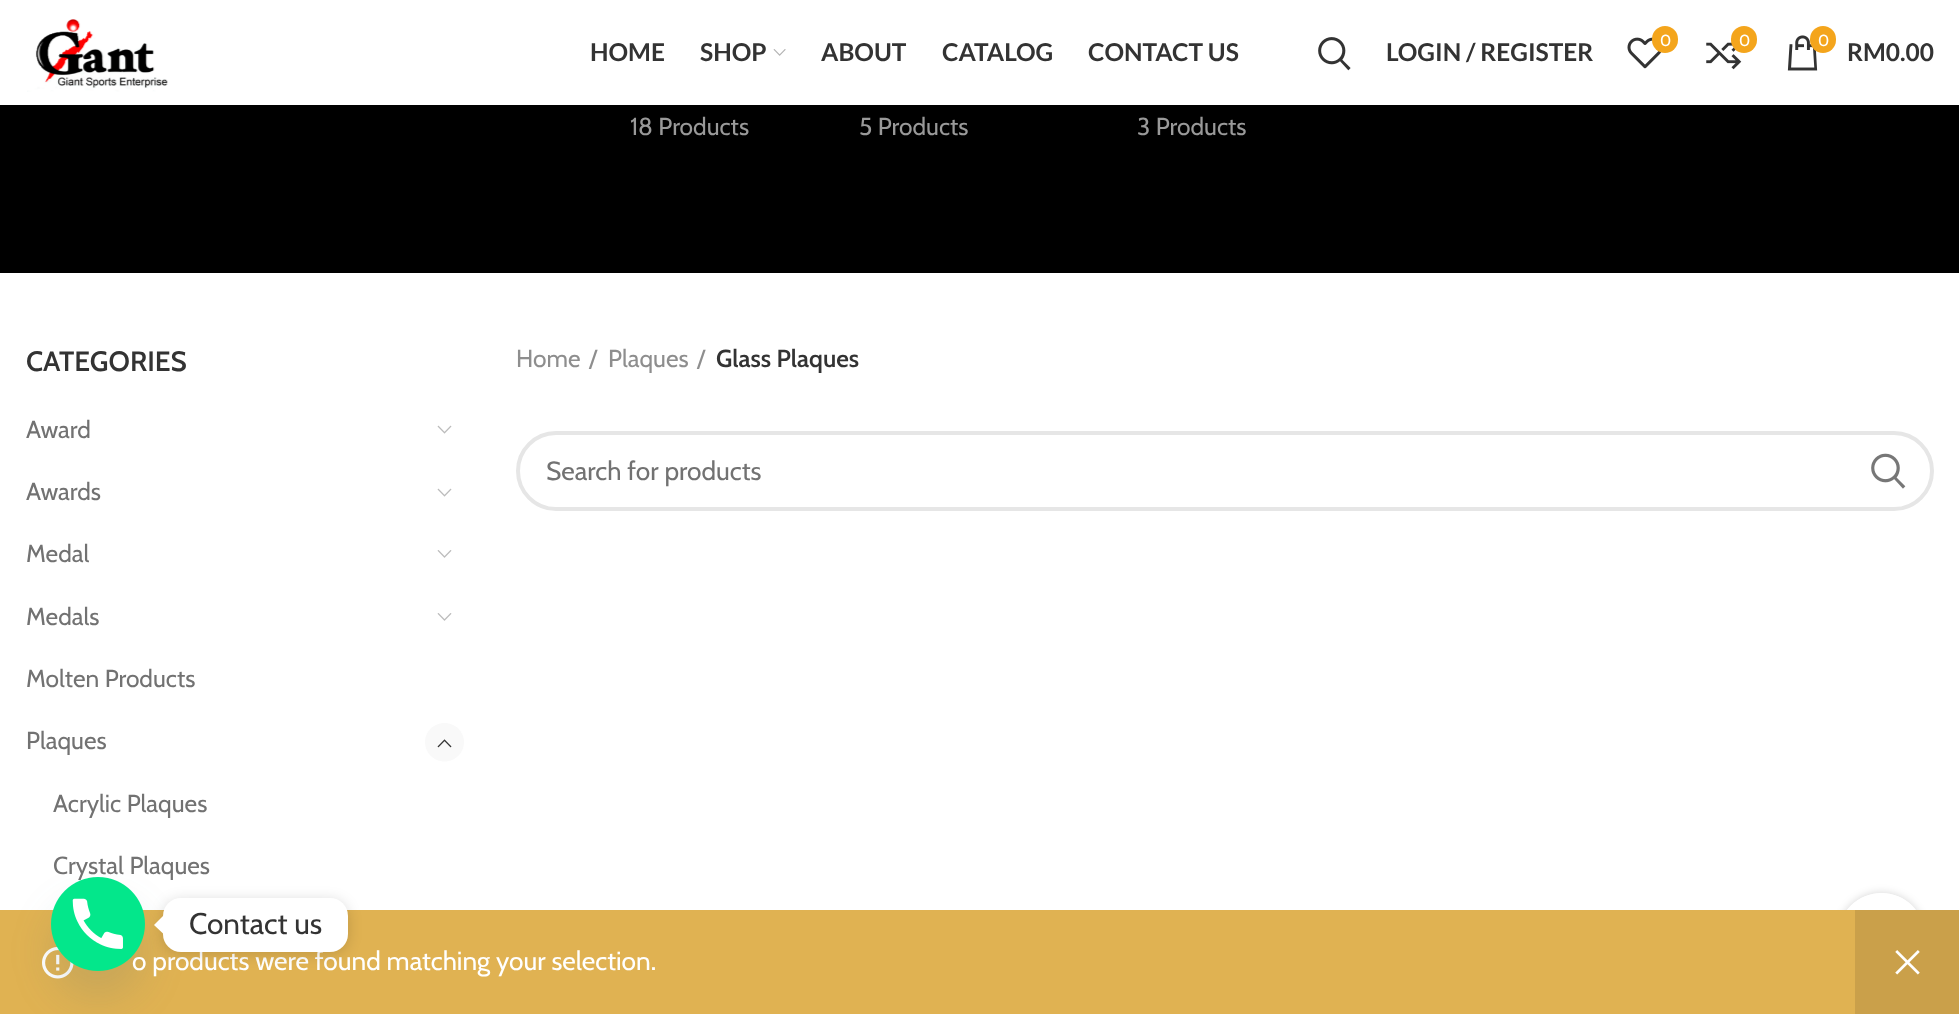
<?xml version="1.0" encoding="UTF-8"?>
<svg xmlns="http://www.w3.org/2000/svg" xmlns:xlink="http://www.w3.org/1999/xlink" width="1959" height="1014">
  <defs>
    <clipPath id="clip1"><path d="M 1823 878 h 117 v 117 h -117 z m 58.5 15 c 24 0 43.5 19.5 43.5 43.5 c 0 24 -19.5 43.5 -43.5 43.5 c -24 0 -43.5 -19.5 -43.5 -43.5 c 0 -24 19.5 -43.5 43.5 -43.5 z" clip-rule="evenodd" /></clipPath>
  </defs>
  <rect width="100%" height="100%" fill="#ffffff" />
  <image x="27" y="19" width="141" height="73" xlink:href="image1.png" />
  <image x="773" y="49" width="13" height="7" xlink:href="image2.png" />
  <image x="1318" y="37" width="33" height="34" xlink:href="image3.png" />
  <image x="1627" y="37" width="35" height="32" xlink:href="image4.png" />
  <rect x="1652" y="26" width="26" height="27" rx="13" fill="#f4a51c" />
  <image x="1706" y="38" width="36" height="32" xlink:href="image5.png" />
  <rect x="1731" y="26" width="26" height="27" rx="13" fill="#f4a51c" />
  <image x="1787" y="35" width="31" height="36" xlink:href="image6.png" />
  <rect x="1810" y="26" width="26" height="27" rx="13" fill="#f4a51c" />
  <rect y="105" width="1959" height="168" fill="#000000" />
  <image x="437" y="425" width="15" height="9" xlink:href="image7.png" />
  <image x="437" y="488" width="15" height="9" xlink:href="image7.png" />
  <image x="437" y="550" width="15" height="8" xlink:href="image8.png" />
  <image x="437" y="613" width="15" height="8" xlink:href="image8.png" />
  <path d="M 444.5 761.5 c -10.5 0 -19.5 -8.5 -19.5 -19.5 c 0 -10.5 9 -19 19.5 -19 c 10.5 0 19.5 8.5 19.5 19 c 0 11 -9 19.5 -19.5 19.5 z" fill="#f9f9f9" />
  <image x="437" y="739" width="15" height="9" xlink:href="image9.png" />
  <rect x="518" y="433" width="1414" height="76" rx="38" fill="none" stroke="#e6e6e6" stroke-width="4" />
  <image x="1871" y="453" width="35" height="36" xlink:href="image10.png" />
  <g clip-path="url(#clip1)">
    <rect x="1838" y="893" width="87" height="87" rx="43.5" fill="#000000" fill-opacity="0.17" filter="blur(4.5px)" />
  </g>
  <circle cx="1881.5" cy="936.5" r="43.5" fill="#ffffff" fill-opacity="0.9" />
  <rect y="910" width="1855" height="104" fill="#e0b252" />
  <image x="42" y="947" width="32" height="32" xlink:href="image11.png" />
  <rect x="1855" y="910" width="104" height="104" fill="#caa04a" />
  <image x="1895" y="950" width="25" height="25" xlink:href="image12.png" />
  <rect x="51" y="905" width="94" height="94" rx="47" fill="#49687e" fill-opacity="0.16" filter="blur(21px)" />
  <text x="590" y="61" style="font-family: Lato; font-size: 24.5px; font-weight: bold; fill: #333333">HOME</text>
  <text x="700" y="61" style="font-family: Lato; font-size: 24.5px; font-weight: bold; fill: #333333">SHOP</text>
  <text x="821" y="61" style="font-family: Lato; font-size: 24.5px; font-weight: bold; fill: #333333">ABOUT</text>
  <text x="942" y="61" style="font-family: Lato; font-size: 24.5px; font-weight: bold; fill: #333333">CATALOG</text>
  <text x="1088" y="61" style="font-family: Lato; font-size: 24.5px; font-weight: bold; fill: #333333">CONTACT US</text>
  <text x="1386" y="61" style="font-family: Lato; font-size: 24.5px; font-weight: bold; fill: #333333">LOGIN / REGISTER</text>
  <text x="1660" y="46" style="font-family: Cabin; font-size: 16px; fill: #ffffff">0</text>
  <text x="1739" y="46" style="font-family: Cabin; font-size: 16px; fill: #ffffff">0</text>
  <text x="1818" y="46" style="font-family: Cabin; font-size: 16px; fill: #ffffff">0</text>
  <text x="1847" y="61" style="font-family: Lato; font-size: 24.5px; font-weight: bold; fill: #333333">RM0.00</text>
  <text x="630" y="135" style="font-family: Cabin; font-size: 24.5px; fill: #999999">18 Products</text>
  <text x="859" y="135" style="font-family: Cabin; font-size: 24.5px; fill: #999999">5 Products</text>
  <text x="1137" y="135" style="font-family: Cabin; font-size: 24.5px; fill: #999999">3 Products</text>
  <text x="26" y="371" style="font-family: Cabin; font-size: 28px; font-weight: 600; fill: #333333">CATEGORIES</text>
  <text x="26" y="438" style="font-family: Cabin; font-size: 24.5px; fill: #727272">Award</text>
  <text x="26" y="500" style="font-family: Cabin; font-size: 24.5px; fill: #727272">Awards</text>
  <text x="26" y="562" style="font-family: Cabin; font-size: 24.5px; fill: #727272">Medal</text>
  <text x="26" y="625" style="font-family: Cabin; font-size: 24.5px; fill: #727272">Medals</text>
  <text x="26" y="687" style="font-family: Cabin; font-size: 24.5px; fill: #727272">Molten Products</text>
  <text x="26" y="749" style="font-family: Cabin; font-size: 24.5px; fill: #727272">Plaques</text>
  <text x="53" y="812" style="font-family: Cabin; font-size: 24.5px; fill: #727272">Acrylic Plaques</text>
  <text x="53" y="874" style="font-family: Cabin; font-size: 24.5px; fill: #727272">Crystal Plaques</text>
  <text x="516" y="367" style="font-family: Cabin; font-size: 24.5px; fill: #8e8e8e">Home</text>
  <text x="589" y="367" style="font-family: Cabin; font-size: 24.5px; fill: #8e8e8e">/</text>
  <text x="608" y="367" style="font-family: Cabin; font-size: 24.5px; fill: #8e8e8e">Plaques</text>
  <text x="697" y="367" style="font-family: Cabin; font-size: 24.5px; fill: #8e8e8e">/</text>
  <text x="716" y="367" style="font-family: Cabin; font-size: 24.5px; font-weight: 600; fill: #333333">Glass Plaques</text>
  <text x="546" y="480" style="font-family: Cabin; font-size: 26.25px; fill: #727272">Search for products</text>
  <text x="132" y="970" style="font-family: Cabin; font-size: 26.25px; fill: #ffffff">o products were found matching your selection.</text>
  <image x="51" y="877" width="94" height="94" xlink:href="image13.png" />
  <rect x="163" y="900" width="185" height="54" rx="18" fill="#000000" fill-opacity="0.15" filter="blur(7px)" />
  <rect x="163" y="898" width="185" height="54" rx="18" fill="#ffffff" />
  <path d="M 163 916 v 17.5 l -9 -8.5 z" fill="#ffffff" />
  <text x="189" y="934" style="font-family: Cabin; font-size: 29.75px; fill: #333333">Contact us</text>
</svg>
